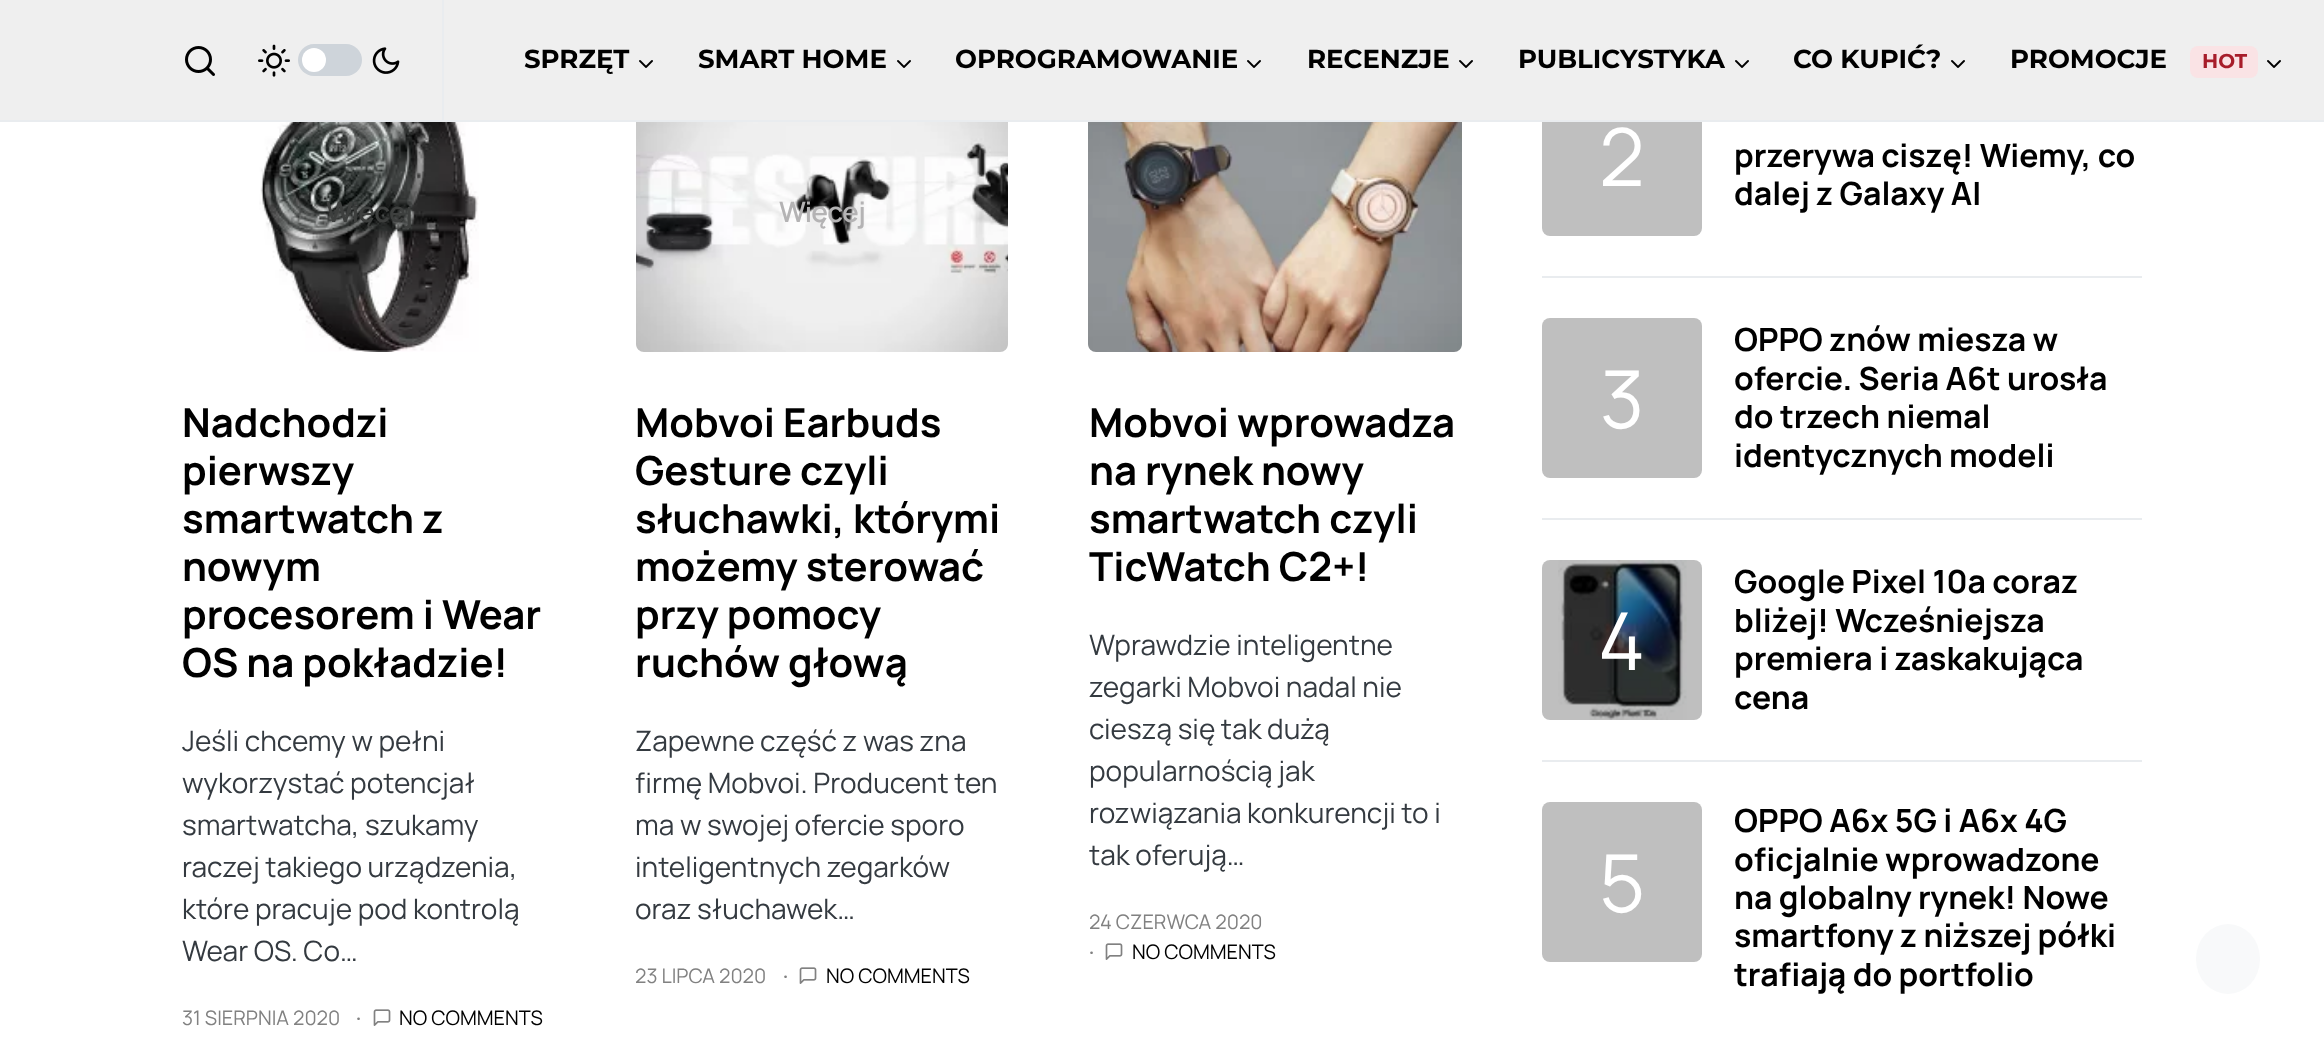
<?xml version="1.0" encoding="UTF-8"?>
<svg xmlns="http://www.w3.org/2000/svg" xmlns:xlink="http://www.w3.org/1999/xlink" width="2324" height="1057">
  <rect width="100%" height="100%" fill="#ffffff" />
  <rect x="1542" y="76" width="160" height="160" rx="8" fill="#bfbfbf" />
  <rect width="2324" height="120" fill="#efefef" />
  <rect y="120" width="2324" height="2" fill="#e9ecef" />
  <image x="185" y="46" width="30" height="30" xlink:href="image1.png" />
  <image x="258" y="44" width="32" height="33" xlink:href="image2.png" />
  <rect x="298" y="44" width="64" height="32" rx="16" fill="#ced4da" />
  <circle cx="314" cy="60" r="12" fill="#ffffff" />
  <image x="372" y="47" width="28" height="27" xlink:href="image3.png" />
  <rect x="442" width="2" height="120" fill="#e9ecef" />
  <image x="639" y="60" width="14" height="8" xlink:href="image4.png" />
  <image x="897" y="60" width="14" height="8" xlink:href="image4.png" />
  <image x="1247" y="60" width="14" height="8" xlink:href="image4.png" />
  <image x="1459" y="60" width="14" height="8" xlink:href="image4.png" />
  <image x="1735" y="60" width="14" height="8" xlink:href="image4.png" />
  <image x="1951" y="60" width="14" height="8" xlink:href="image4.png" />
  <rect x="2190" y="46" width="68" height="32" rx="8" fill="#fae3e5" />
  <image x="2267" y="60" width="14" height="8" xlink:href="image4.png" />
  <image x="259" y="122" width="220" height="230" xlink:href="image5.png" />
  <image x="373" y="1009" width="18" height="17" xlink:href="image6.png" />
  <image x="636" y="122" width="372" height="230" xlink:href="image7.png" />
  <image x="799" y="967" width="18" height="17" xlink:href="image6.png" />
  <image x="1088" y="122" width="374" height="230" xlink:href="image8.png" />
  <image x="1105" y="943" width="18" height="17" xlink:href="image6.png" />
  <rect x="1542" y="276" width="600" height="2" fill="#e9ecef" />
  <rect x="1542" y="318" width="160" height="160" rx="8" fill="#bfbfbf" />
  <rect x="1542" y="518" width="600" height="2" fill="#e9ecef" />
  <image x="1558" y="560" width="129" height="160" xlink:href="image9.png" />
  <rect x="1542" y="560" width="160" height="160" rx="8" fill="#000000" fill-opacity="0.25" />
  <rect x="1542" y="760" width="600" height="2" fill="#e9ecef" />
  <rect x="1542" y="802" width="160" height="160" rx="8" fill="#bfbfbf" />
  <ellipse cx="2228" cy="959" rx="32" ry="35" fill="#f8f9fa" />
  <text x="524" y="68" style="font-family: Montserrat; font-size: 26px; font-weight: bold; fill: #000000">SPRZĘT</text>
  <text x="698" y="68" style="font-family: Montserrat; font-size: 26px; font-weight: bold; fill: #000000">SMART HOME</text>
  <text x="955" y="68" style="font-family: Montserrat; font-size: 26px; font-weight: bold; fill: #000000">OPROGRAMOWANIE</text>
  <text x="1307" y="68" style="font-family: Montserrat; font-size: 26px; font-weight: bold; fill: #000000">RECENZJE</text>
  <text x="1518" y="68" style="font-family: Montserrat; font-size: 26px; font-weight: bold; fill: #000000">PUBLICYSTYKA</text>
  <text x="1793" y="68" style="font-family: Montserrat; font-size: 26px; font-weight: bold; fill: #000000">CO KUPIĆ?</text>
  <text x="2010" y="68" style="font-family: Montserrat; font-size: 26px; font-weight: bold; fill: #000000">PROMOCJE</text>
  <text x="2202" y="68" style="font-family: Montserrat; font-size: 20px; font-weight: bold; fill: #a71d2a">HOT</text>
  <text x="326" y="222" style="font-family: Manrope; font-size: 28px; font-weight: 600; letter-spacing: -0.75px; fill: #3d3f3e">Więcej</text>
  <text x="182" y="437" style="font-family: Manrope; font-size: 40px; font-weight: bold; fill: #000000">Nadchodzi</text>
  <text x="182" y="485" style="font-family: Manrope; font-size: 40px; font-weight: bold; fill: #000000">pierwszy</text>
  <text x="182" y="533" style="font-family: Manrope; font-size: 40px; font-weight: bold; fill: #000000">smartwatch z</text>
  <text x="182" y="581" style="font-family: Manrope; font-size: 40px; font-weight: bold; fill: #000000">nowym</text>
  <text x="182" y="629" style="font-family: Manrope; font-size: 40px; font-weight: bold; fill: #000000">procesorem i Wear</text>
  <text x="182" y="677" style="font-family: Manrope; font-size: 40px; font-weight: bold; fill: #000000">OS na pokładzie!</text>
  <text x="182" y="751" style="font-family: Manrope; font-size: 28px; fill: #343a40">Jeśli chcemy w pełni</text>
  <text x="182" y="793" style="font-family: Manrope; font-size: 28px; fill: #343a40">wykorzystać potencjał</text>
  <text x="182" y="835" style="font-family: Manrope; font-size: 28px; fill: #343a40">smartwatcha, szukamy</text>
  <text x="182" y="877" style="font-family: Manrope; font-size: 28px; fill: #343a40">raczej takiego urządzenia,</text>
  <text x="182" y="919" style="font-family: Manrope; font-size: 28px; fill: #343a40">które pracuje pod kontrolą</text>
  <text x="182" y="961" style="font-family: Manrope; font-size: 28px; fill: #343a40">Wear OS. Co…</text>
  <text x="182" y="1025" style="font-family: Manrope; font-size: 20px; fill: #818181">31 SIERPNIA 2020</text>
  <text x="356" y="1025" style="font-family: Manrope; font-size: 20px; font-weight: 600; fill: #818181">·</text>
  <text x="399" y="1025" style="font-family: Manrope; font-size: 20px; fill: #000000">NO COMMENTS</text>
  <text x="779" y="222" style="font-family: Manrope; font-size: 28px; font-weight: 600; letter-spacing: -0.75px; fill: #b4b3b4">Więcej</text>
  <text x="635" y="437" style="font-family: Manrope; font-size: 40px; font-weight: bold; fill: #000000">Mobvoi Earbuds</text>
  <text x="635" y="485" style="font-family: Manrope; font-size: 40px; font-weight: bold; fill: #000000">Gesture czyli</text>
  <text x="635" y="533" style="font-family: Manrope; font-size: 40px; font-weight: bold; fill: #000000">słuchawki, którymi</text>
  <text x="635" y="581" style="font-family: Manrope; font-size: 40px; font-weight: bold; fill: #000000">możemy sterować</text>
  <text x="635" y="629" style="font-family: Manrope; font-size: 40px; font-weight: bold; fill: #000000">przy pomocy</text>
  <text x="635" y="677" style="font-family: Manrope; font-size: 40px; font-weight: bold; fill: #000000">ruchów głową</text>
  <text x="635" y="751" style="font-family: Manrope; font-size: 28px; fill: #343a40">Zapewne część z was zna</text>
  <text x="635" y="793" style="font-family: Manrope; font-size: 28px; fill: #343a40">firmę Mobvoi. Producent ten</text>
  <text x="635" y="835" style="font-family: Manrope; font-size: 28px; fill: #343a40">ma w swojej ofercie sporo</text>
  <text x="635" y="877" style="font-family: Manrope; font-size: 28px; fill: #343a40">inteligentnych zegarków</text>
  <text x="635" y="919" style="font-family: Manrope; font-size: 28px; fill: #343a40">oraz słuchawek…</text>
  <text x="635" y="983" style="font-family: Manrope; font-size: 20px; fill: #818181">23 LIPCA 2020</text>
  <text x="783" y="983" style="font-family: Manrope; font-size: 20px; font-weight: 600; fill: #818181">·</text>
  <text x="826" y="983" style="font-family: Manrope; font-size: 20px; fill: #000000">NO COMMENTS</text>
  <text x="1089" y="437" style="font-family: Manrope; font-size: 40px; font-weight: bold; fill: #000000">Mobvoi wprowadza</text>
  <text x="1089" y="485" style="font-family: Manrope; font-size: 40px; font-weight: bold; fill: #000000">na rynek nowy</text>
  <text x="1089" y="533" style="font-family: Manrope; font-size: 40px; font-weight: bold; fill: #000000">smartwatch czyli</text>
  <text x="1089" y="581" style="font-family: Manrope; font-size: 40px; font-weight: bold; fill: #000000">TicWatch C2+!</text>
  <text x="1089" y="655" style="font-family: Manrope; font-size: 28px; fill: #343a40">Wprawdzie inteligentne</text>
  <text x="1089" y="697" style="font-family: Manrope; font-size: 28px; fill: #343a40">zegarki Mobvoi nadal nie</text>
  <text x="1089" y="739" style="font-family: Manrope; font-size: 28px; fill: #343a40">cieszą się tak dużą</text>
  <text x="1089" y="781" style="font-family: Manrope; font-size: 28px; fill: #343a40">popularnością jak</text>
  <text x="1089" y="823" style="font-family: Manrope; font-size: 28px; fill: #343a40">rozwiązania konkurencji to i</text>
  <text x="1089" y="865" style="font-family: Manrope; font-size: 28px; fill: #343a40">tak oferują…</text>
  <text x="1089" y="929" style="font-family: Manrope; font-size: 20px; fill: #818181">24 CZERWCA 2020</text>
  <text x="1089" y="959" style="font-family: Manrope; font-size: 20px; font-weight: 600; fill: #818181">·</text>
  <text x="1132" y="959" style="font-family: Manrope; font-size: 20px; fill: #000000">NO COMMENTS</text>
  <text x="1599" y="186" style="font-family: Manrope; font-size: 80px; fill: #ffffff">2</text>
  <text x="1734" y="167" style="font-family: Manrope; font-size: 32px; font-weight: bold; fill: #000000">przerywa ciszę! Wiemy, co</text>
  <text x="1734" y="205" style="font-family: Manrope; font-size: 32px; font-weight: bold; fill: #000000">dalej z Galaxy AI</text>
  <text x="1600" y="428" style="font-family: Manrope; font-size: 80px; fill: #ffffff">3</text>
  <text x="1734" y="351" style="font-family: Manrope; font-size: 32px; font-weight: bold; fill: #000000">OPPO znów miesza w</text>
  <text x="1734" y="390" style="font-family: Manrope; font-size: 32px; font-weight: bold; fill: #000000">ofercie. Seria A6t urosła</text>
  <text x="1734" y="428" style="font-family: Manrope; font-size: 32px; font-weight: bold; fill: #000000">do trzech niemal</text>
  <text x="1734" y="467" style="font-family: Manrope; font-size: 32px; font-weight: bold; fill: #000000">identycznych modeli</text>
  <text x="1598" y="670" style="font-family: Manrope; font-size: 80px; fill: #ffffff">4</text>
  <text x="1734" y="593" style="font-family: Manrope; font-size: 32px; font-weight: bold; fill: #000000">Google Pixel 10a coraz</text>
  <text x="1734" y="632" style="font-family: Manrope; font-size: 32px; font-weight: bold; fill: #000000">bliżej! Wcześniejsza</text>
  <text x="1734" y="670" style="font-family: Manrope; font-size: 32px; font-weight: bold; fill: #000000">premiera i zaskakująca</text>
  <text x="1734" y="709" style="font-family: Manrope; font-size: 32px; font-weight: bold; fill: #000000">cena</text>
  <text x="1599" y="912" style="font-family: Manrope; font-size: 80px; fill: #ffffff">5</text>
  <text x="1734" y="832" style="font-family: Manrope; font-size: 32px; font-weight: bold; fill: #000000">OPPO A6x 5G i A6x 4G</text>
  <text x="1734" y="871" style="font-family: Manrope; font-size: 32px; font-weight: bold; fill: #000000">oficjalnie wprowadzone</text>
  <text x="1734" y="909" style="font-family: Manrope; font-size: 32px; font-weight: bold; fill: #000000">na globalny rynek! Nowe</text>
  <text x="1734" y="947" style="font-family: Manrope; font-size: 32px; font-weight: bold; fill: #000000">smartfony z niższej półki</text>
  <text x="1734" y="986" style="font-family: Manrope; font-size: 32px; font-weight: bold; fill: #000000">trafiają do portfolio</text>
</svg>
